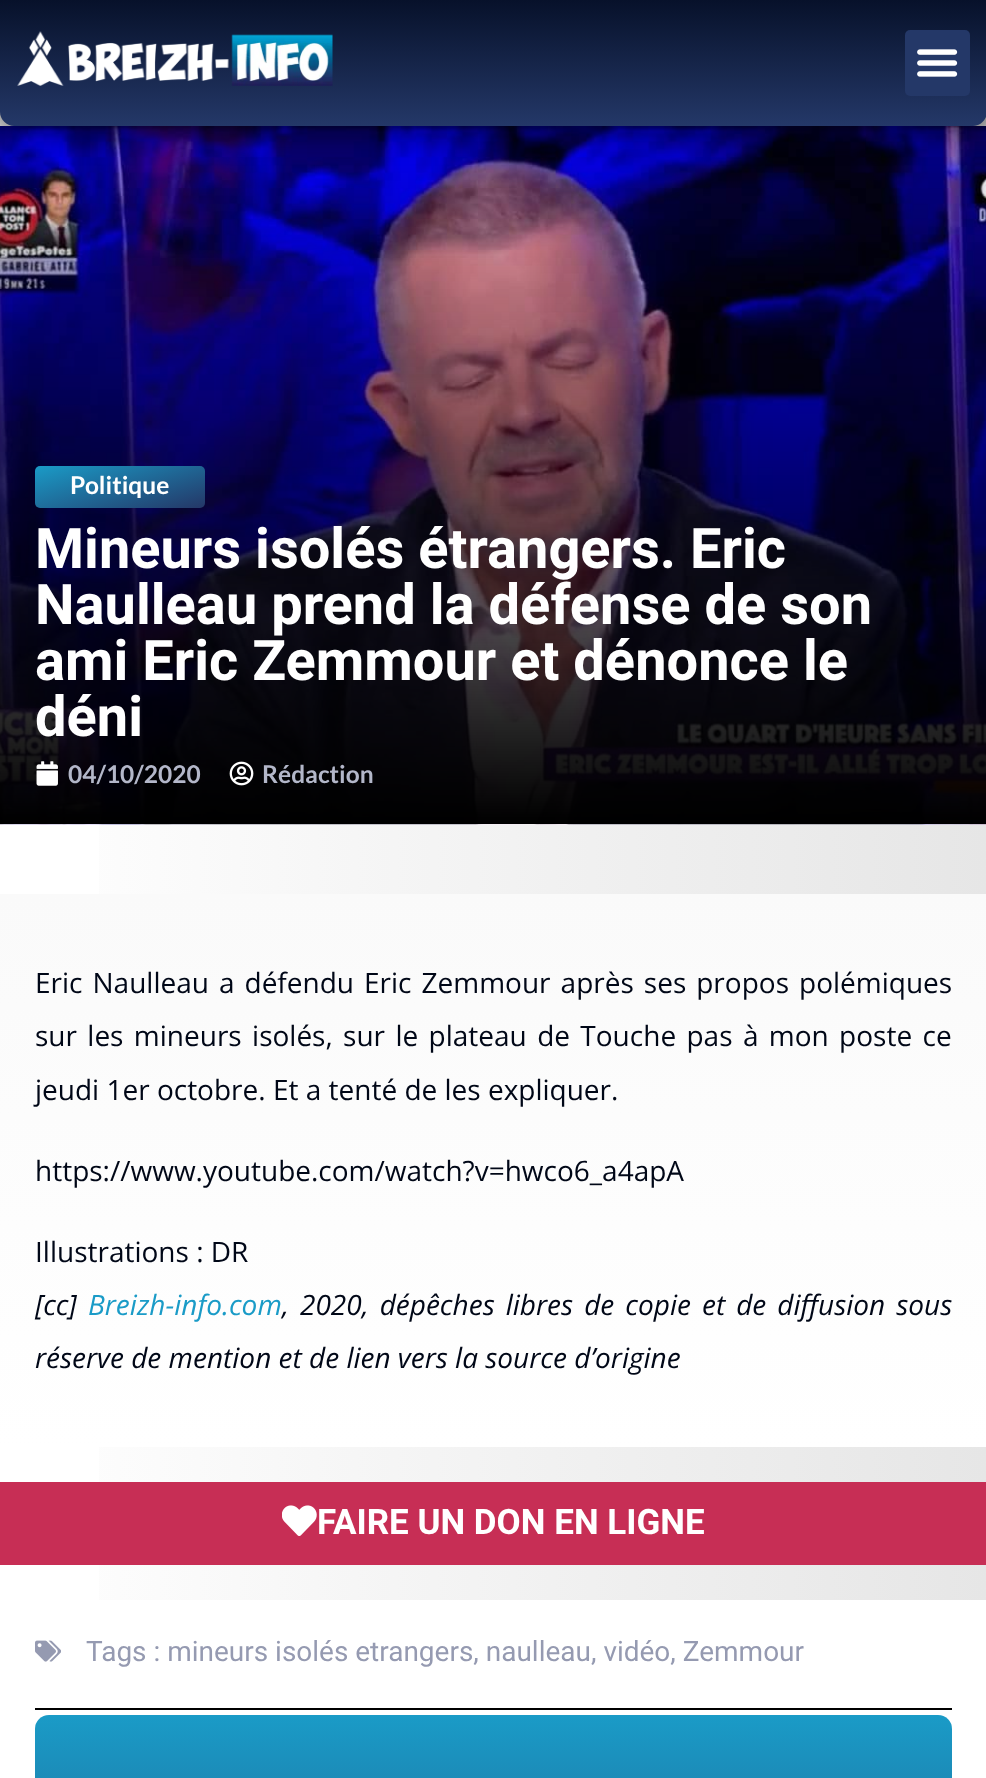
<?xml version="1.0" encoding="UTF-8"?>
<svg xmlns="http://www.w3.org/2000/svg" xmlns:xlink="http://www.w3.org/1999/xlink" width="986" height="1778">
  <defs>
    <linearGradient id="g1" gradientUnits="userSpaceOnUse" x1="0" y1="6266" x2="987" y2="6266"><stop offset="0" stop-color="#ffffff" /><stop offset="1" stop-color="#e6e6e6" /></linearGradient>
    <linearGradient id="g2" gradientUnits="userSpaceOnUse" x1="494" y1="0" x2="494" y2="126"><stop offset="0" stop-color="#07112a" /><stop offset="1" stop-color="#243868" /></linearGradient>
    <linearGradient id="g3" gradientUnits="userSpaceOnUse" x1="107" y1="444" x2="133" y2="529"><stop offset="0" stop-color="#1a9bc7" /><stop offset="1" stop-color="#243868" /></linearGradient>
    <linearGradient id="g4" gradientUnits="userSpaceOnUse" x1="494" y1="894" x2="494" y2="1447"><stop offset="0" stop-color="#fafafa" /><stop offset="1" stop-color="#ffffff" /></linearGradient>
    <linearGradient id="g5" gradientUnits="userSpaceOnUse" x1="494" y1="1715" x2="494" y2="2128"><stop offset="0" stop-color="#1a9bc7" /><stop offset="1" stop-color="#243868" /></linearGradient>
  </defs>
  <rect width="100%" height="100%" fill="#ffffff" />
  <rect x="99" y="112" width="887" height="1488" fill="url(#g1)" />
  <image x="0" y="126" width="986" height="699" xlink:href="image3.png" />
  <rect x="-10" y="-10" width="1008" height="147" rx="25" fill="#000000" fill-opacity="0.5" filter="blur(13px)" />
  <path d="M 0 0 h 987 v 112 c 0 7.5 -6.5 14 -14 14 h -959 c -7.5 0 -14 -6.5 -14 -14 z" fill="url(#g2)" />
  <image x="17" y="31" width="316" height="55" xlink:href="image1.png" />
  <rect x="905" y="30" width="65" height="66" rx="5" fill="#243868" />
  <image x="917" y="49" width="41" height="28" xlink:href="image2.png" />
  <rect x="35" y="466" width="170" height="42" rx="5" fill="url(#g3)" />
  <image x="36" y="761" width="22" height="25" xlink:href="image4.png" />
  <image x="229" y="761" width="25" height="25" xlink:href="image5.png" />
  <rect y="894" width="986" height="553" fill="url(#g4)" />
  <rect y="1482" width="986" height="83" fill="#c72e55" />
  <image x="282" y="1505" width="35" height="31" xlink:href="image6.png" />
  <image x="35" y="1640" width="26" height="22" xlink:href="image7.png" />
  <rect x="35" y="1708" width="917" height="2" fill="#000000" />
  <rect x="35" y="1715" width="917" height="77" rx="14" fill="url(#g5)" />
  <text x="70" y="494" style="font-family: Lato; font-size: 24.5px; font-weight: bold; fill: #ffffff">Politique</text>
  <text x="35" y="568" style="font-family: Roboto; font-size: 56px; font-weight: bold; fill: #ffffff">Mineurs isolés étrangers. Eric</text>
  <text x="35" y="624" style="font-family: Roboto; font-size: 56px; font-weight: bold; fill: #ffffff">Naulleau prend la défense de son</text>
  <text x="35" y="680" style="font-family: Roboto; font-size: 56px; font-weight: bold; fill: #ffffff">ami Eric Zemmour et dénonce le</text>
  <text x="35" y="736" style="font-family: Roboto; font-size: 56px; font-weight: bold; fill: #ffffff">déni</text>
  <text x="68" y="783" style="font-family: Lato; font-size: 24.5px; font-weight: bold; fill: #b3b7c9">04/10/2020</text>
  <text x="262" y="783" style="font-family: Lato; font-size: 24.5px; font-weight: bold; fill: #b3b7c9">Rédaction</text>
  <text x="35" y="993" word-spacing="2.75" style="font-family: Open Sans; font-size: 28px; fill: #000717">Eric Naulleau a défendu Eric Zemmour après ses propos polémiques</text>
  <text x="35" y="1046" word-spacing="3.1" style="font-family: Open Sans; font-size: 28px; fill: #000717">sur les mineurs isolés, sur le plateau de Touche pas à mon poste ce</text>
  <text x="35" y="1100" style="font-family: Open Sans; font-size: 28px; fill: #000717">jeudi 1er octobre. Et a tenté de les expliquer.</text>
  <text x="35" y="1181" style="font-family: Open Sans; font-size: 28px; fill: #000717">https://www.youtube.com/watch?v=hwco6_a4apA</text>
  <text x="35" y="1262" style="font-family: Open Sans; font-size: 28px; fill: #000717">Illustrations : DR</text>
  <text x="35" y="1315" style="font-family: Open Sans; font-size: 28px; font-style: italic; fill: #000717">[cc]</text>
  <text x="88" y="1315" style="font-family: Open Sans; font-size: 28px; font-style: italic; fill: #1a9bc7">Breizh-info.com</text>
  <text x="282" y="1315" word-spacing="3.75" style="font-family: Open Sans; font-size: 28px; font-style: italic; fill: #000717">, 2020, dépêches libres de copie et de diffusion sous</text>
  <text x="35" y="1368" style="font-family: Open Sans; font-size: 28px; font-style: italic; fill: #000717">réserve de mention et de lien vers la source d’origine</text>
  <text x="317" y="1534" style="font-family: Roboto; font-size: 35px; font-weight: bold; fill: #ffffff">FAIRE UN DON EN LIGNE</text>
  <text x="86" y="1661" style="font-family: Roboto; font-size: 28px; fill: #959ab1">Tags : mineurs isolés etrangers, naulleau, vidéo, Zemmour</text>
</svg>
